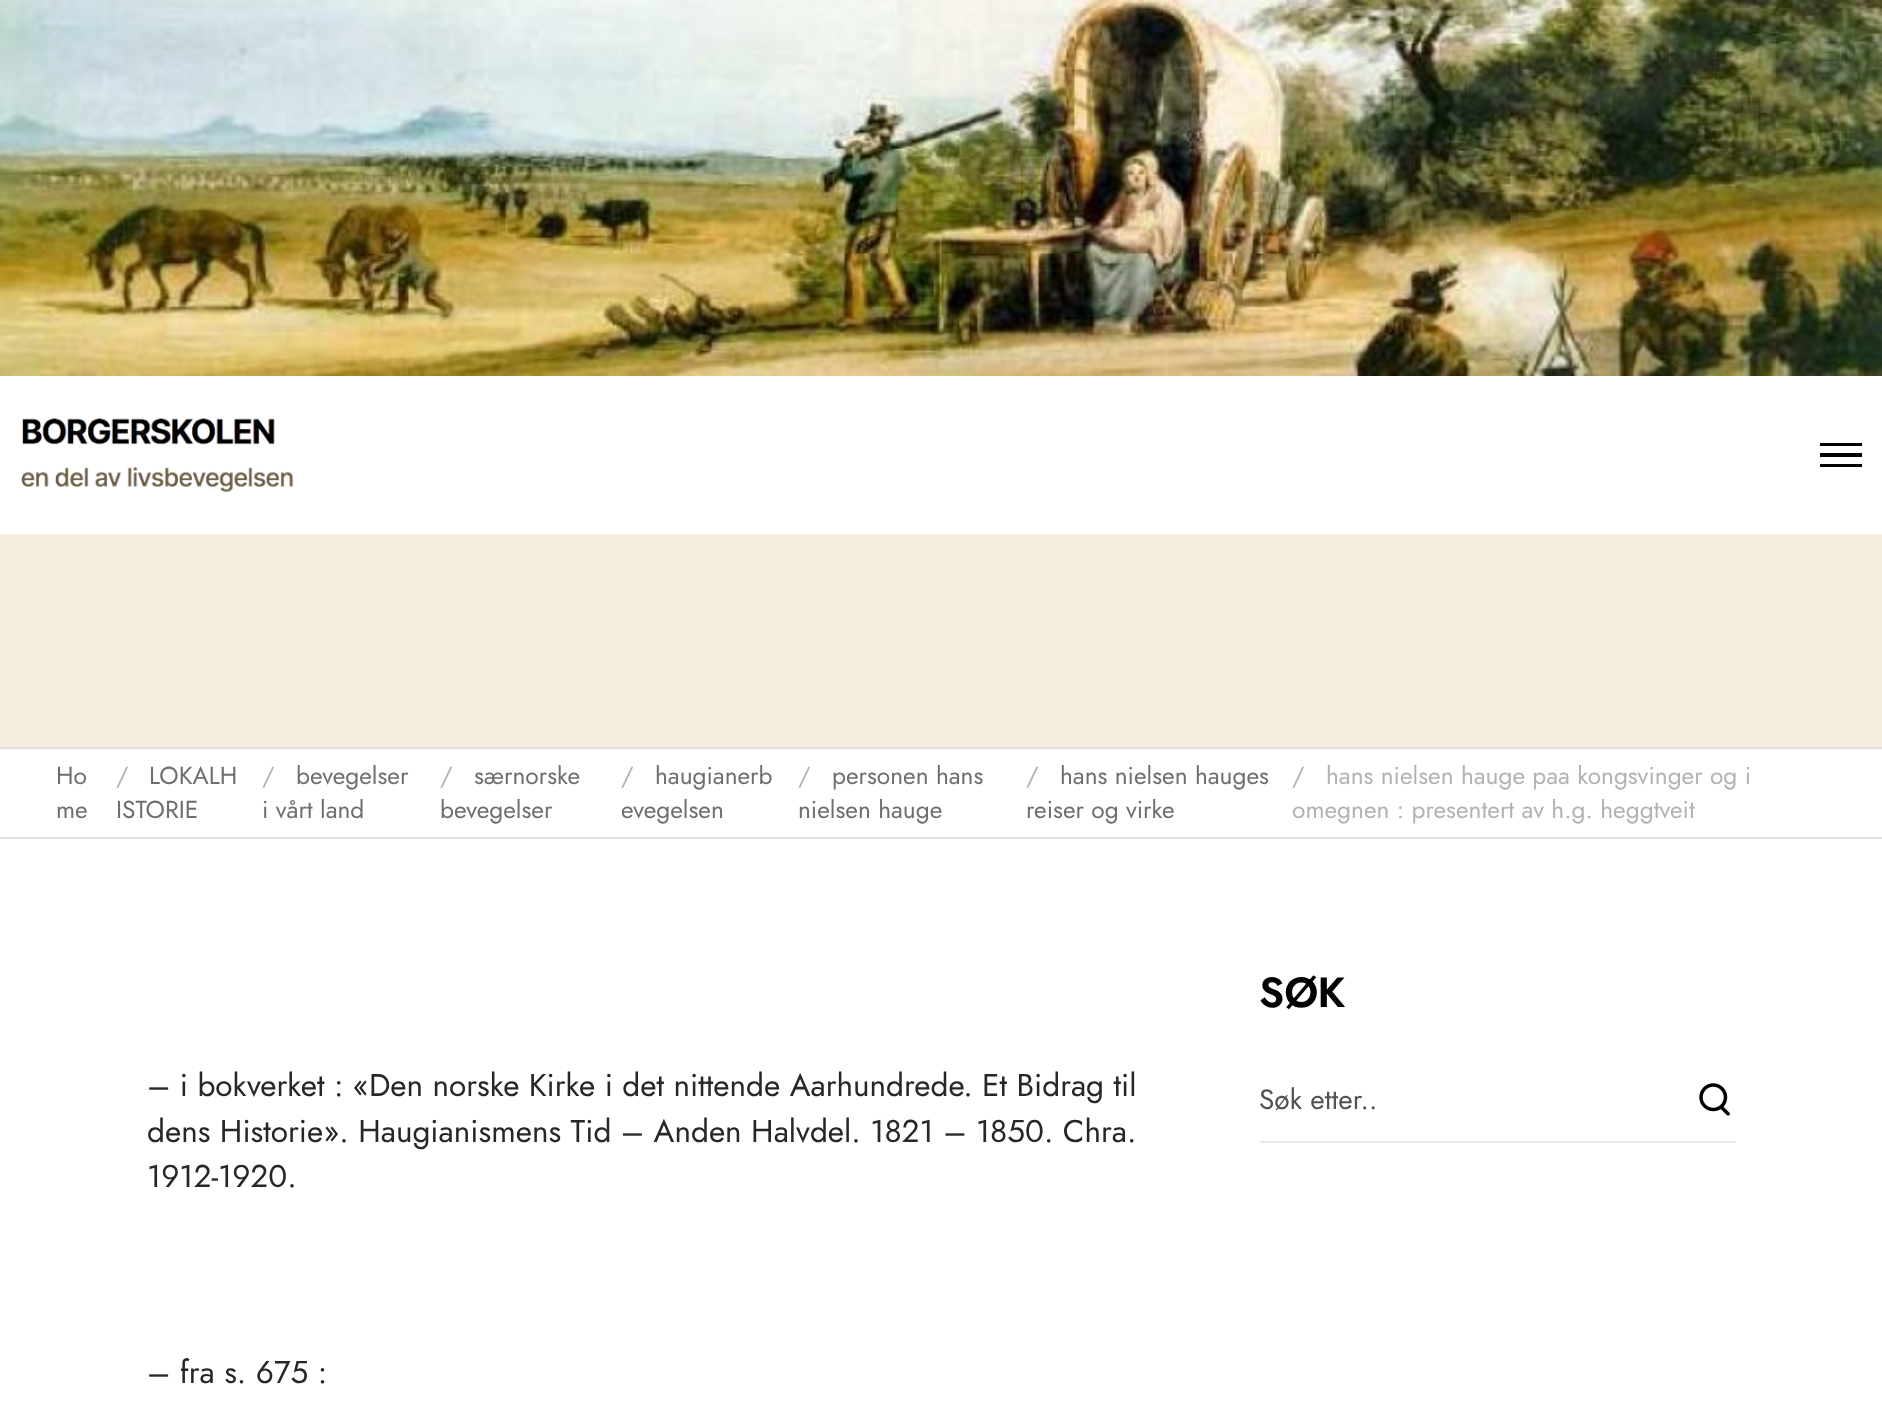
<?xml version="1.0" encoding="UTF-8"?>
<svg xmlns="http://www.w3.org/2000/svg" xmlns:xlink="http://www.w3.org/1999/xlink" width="1882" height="1426">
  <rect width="100%" height="100%" fill="#ffffff" />
  <image x="0" y="0" width="1882" height="376" xlink:href="image1.png" />
  <image x="21" y="418" width="273" height="75" xlink:href="image2.png" />
  <path d="M 1862 464 v 3 h -42 v -3 z m 0 -11 v 4 h -42 v -4 z m 0 -10 v 3 h -42 v -3 z" fill="#000000" />
  <rect y="534" width="1882" height="213" fill="#f5efe0" />
  <rect y="747" width="1882" height="2" fill="#e0e0e0" />
  <rect y="837" width="1882" height="2" fill="#e0e0e0" />
  <rect x="1260" y="1141" width="476" height="2" fill="#e9e9e9" />
  <image x="1699" y="1083" width="31" height="33" xlink:href="image3.png" />
  <text x="56" y="784" style="font-family: Jost; font-size: 24.5px; fill: #6e6e6e">Ho</text>
  <text x="56" y="818" style="font-family: Jost; font-size: 24.5px; fill: #6e6e6e">me</text>
  <text x="116" y="784" style="font-family: Jost; font-size: 24.5px; fill: #b2b2b2">/</text>
  <text x="149" y="784" style="font-family: Jost; font-size: 24.5px; fill: #6e6e6e">LOKALH</text>
  <text x="116" y="818" style="font-family: Jost; font-size: 24.5px; fill: #6e6e6e">ISTORIE</text>
  <text x="262" y="784" style="font-family: Jost; font-size: 24.5px; fill: #b2b2b2">/</text>
  <text x="296" y="784" style="font-family: Jost; font-size: 24.5px; fill: #6e6e6e">bevegelser</text>
  <text x="262" y="818" style="font-family: Jost; font-size: 24.5px; fill: #6e6e6e">i vårt land</text>
  <text x="440" y="784" style="font-family: Jost; font-size: 24.5px; fill: #b2b2b2">/</text>
  <text x="474" y="784" style="font-family: Jost; font-size: 24.5px; fill: #6e6e6e">særnorske</text>
  <text x="440" y="818" style="font-family: Jost; font-size: 24.5px; fill: #6e6e6e">bevegelser</text>
  <text x="621" y="784" style="font-family: Jost; font-size: 24.5px; fill: #b2b2b2">/</text>
  <text x="655" y="784" style="font-family: Jost; font-size: 24.5px; fill: #6e6e6e">haugianerb</text>
  <text x="621" y="818" style="font-family: Jost; font-size: 24.5px; fill: #6e6e6e">evegelsen</text>
  <text x="798" y="784" style="font-family: Jost; font-size: 24.5px; fill: #b2b2b2">/</text>
  <text x="832" y="784" style="font-family: Jost; font-size: 24.5px; fill: #6e6e6e">personen hans</text>
  <text x="798" y="818" style="font-family: Jost; font-size: 24.5px; fill: #6e6e6e">nielsen hauge</text>
  <text x="1026" y="784" style="font-family: Jost; font-size: 24.5px; fill: #b2b2b2">/</text>
  <text x="1060" y="784" style="font-family: Jost; font-size: 24.5px; fill: #6e6e6e">hans nielsen hauges</text>
  <text x="1026" y="818" style="font-family: Jost; font-size: 24.5px; fill: #6e6e6e">reiser og virke</text>
  <text x="1292" y="784" style="font-family: Jost; font-size: 24.5px; fill: #b2b2b2">/</text>
  <text x="1326" y="784" style="font-family: Jost; font-size: 24.5px; fill: #b2b2b2">hans nielsen hauge paa kongsvinger og i</text>
  <text x="1292" y="818" style="font-family: Jost; font-size: 24.5px; fill: #b2b2b2">omegnen : presentert av h.g. heggtveit</text>
  <text x="1259" y="1007" style="font-family: Jost; font-size: 42px; font-weight: 600; fill: #000000">SØK</text>
  <text x="1259" y="1109" style="font-family: Jost; font-size: 28px; fill: #525252">Søk etter..</text>
  <text x="147" y="1096" style="font-family: Jost; font-size: 31.5px; fill: #272727">– i bokverket : «Den norske Kirke i det nittende Aarhundrede. Et Bidrag til</text>
  <text x="147" y="1142" style="font-family: Jost; font-size: 31.5px; fill: #272727">dens Historie». Haugianismens Tid – Anden Halvdel. 1821 – 1850. Chra.</text>
  <text x="147" y="1187" style="font-family: Jost; font-size: 31.5px; fill: #272727">1912-1920.</text>
  <text x="147" y="1383" style="font-family: Jost; font-size: 31.5px; fill: #272727">– fra s. 675 :</text>
</svg>
